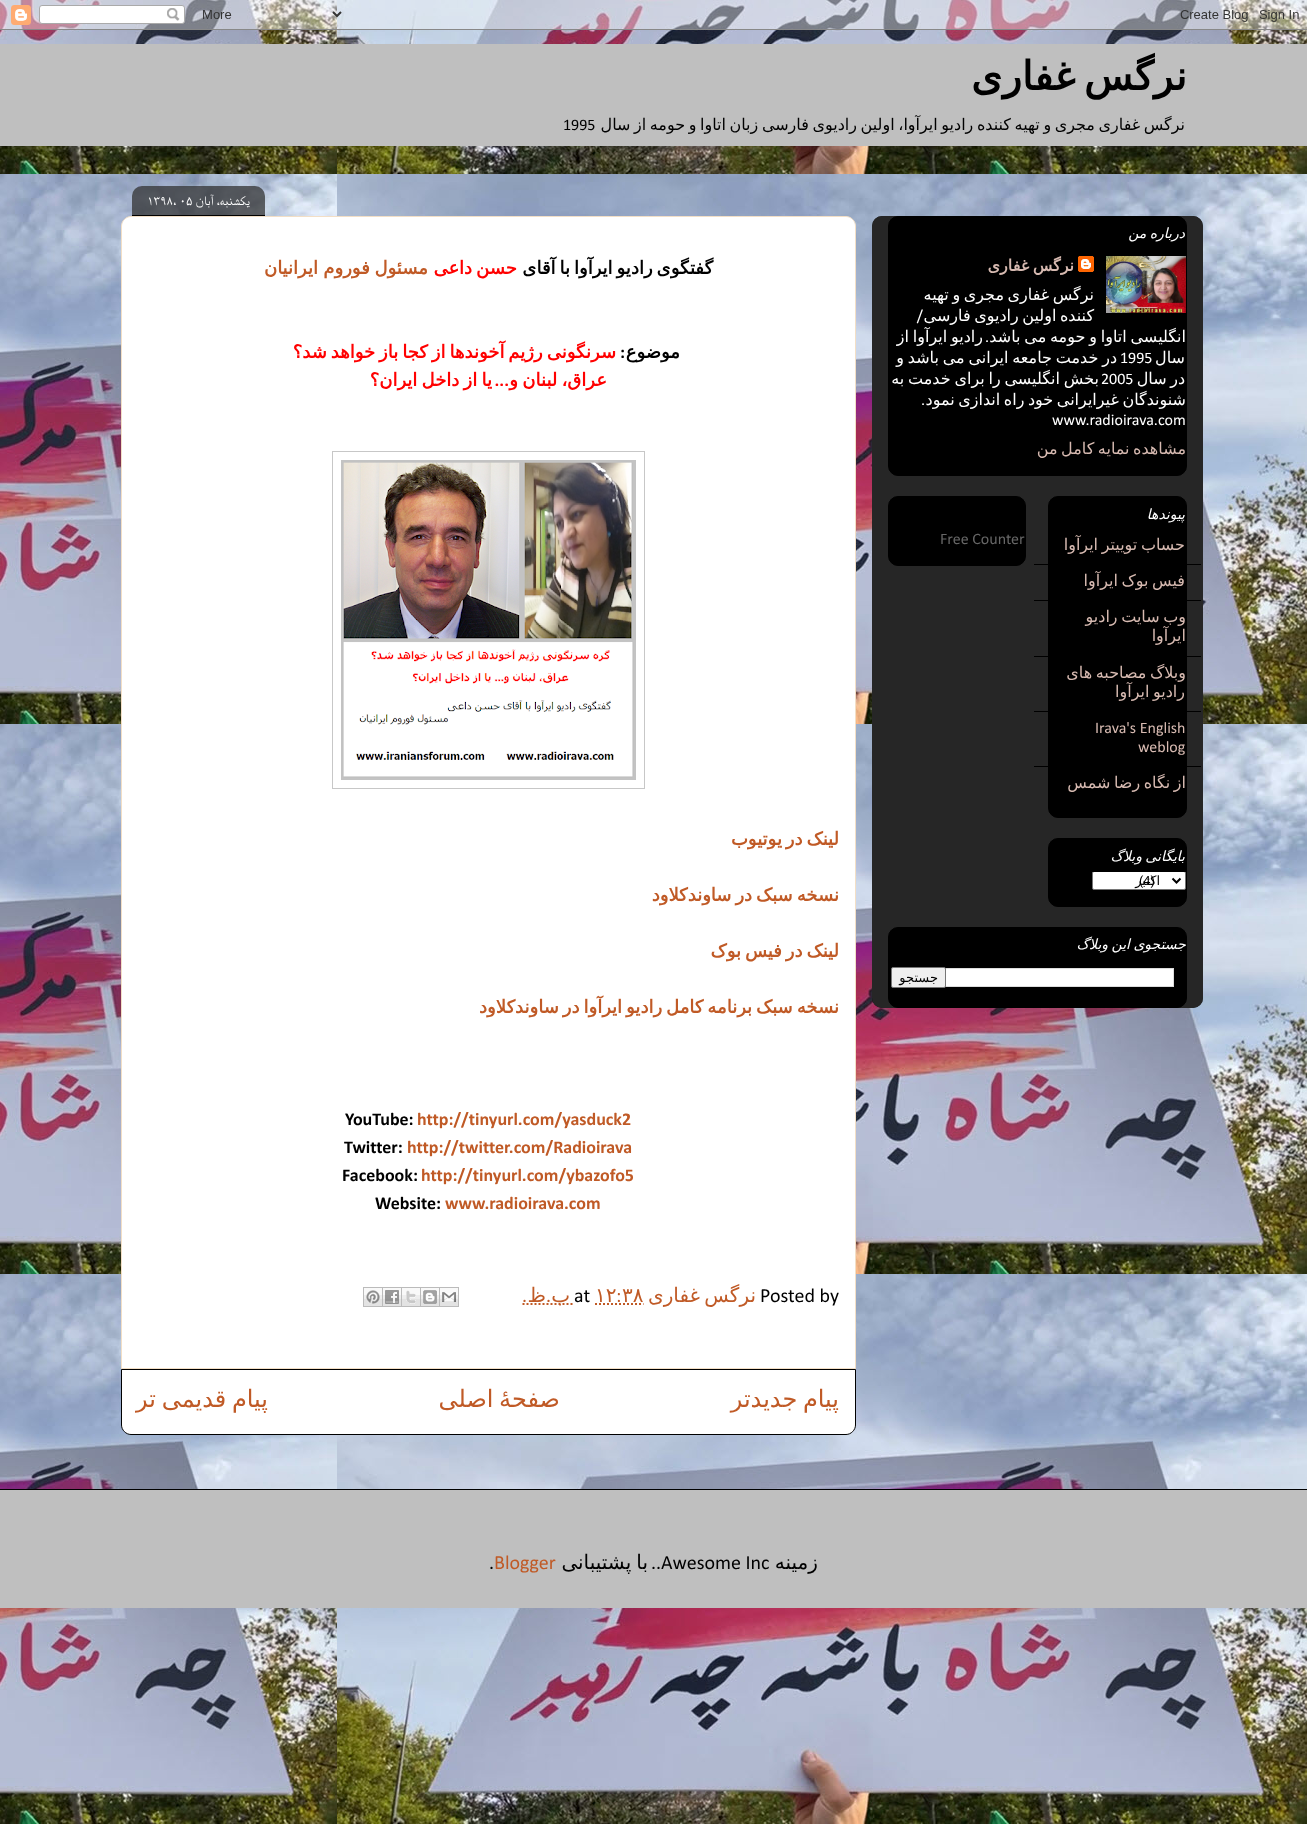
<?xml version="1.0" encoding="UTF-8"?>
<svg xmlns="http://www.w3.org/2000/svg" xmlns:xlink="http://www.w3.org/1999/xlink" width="1307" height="1824">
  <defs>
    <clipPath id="clip1"><rect x="121" y="44" width="1066" height="102" /></clipPath>
  </defs>
  <rect width="100%" height="100%" fill="#ffffff" />
  <image x="0" y="0" width="1307" height="1824" xlink:href="image1.png" />
  <image x="0" y="0" width="1307" height="30" xlink:href="image2.png" />
  <rect y="44" width="1307" height="102" fill="#bfbfbf" />
  <rect x="872" y="216" width="331" height="792" rx="10" fill="#000000" />
  <image x="872" y="216" width="331" height="792" xlink:href="image3.png" />
  <rect x="888.5" y="216.5" width="298" height="259" rx="9.5" fill="#000000" stroke="#000000" />
  <image x="1078" y="256" width="16" height="16" xlink:href="image4.png" />
  <image x="1106" y="256" width="80" height="57" xlink:href="image5.png" />
  <rect x="1048.5" y="496.5" width="138" height="321" rx="9.5" fill="#000000" stroke="#000000" />
  <rect x="1034" y="564" width="167" height="1" fill="#000000" />
  <rect x="1034" y="600" width="167" height="1" fill="#000000" />
  <rect x="1034" y="656" width="167" height="1" fill="#000000" />
  <rect x="1034" y="711" width="167" height="1" fill="#000000" />
  <rect x="1034" y="766" width="167" height="1" fill="#000000" />
  <rect x="1048.5" y="838.5" width="138" height="68" rx="9.5" fill="#000000" stroke="#000000" />
  <rect x="1092.5" y="871.5" width="93" height="18" rx="1.5" fill="#ffffff" stroke="#767676" />
  <rect x="1092" y="871" width="94" height="1" fill="#000000" />
  <path d="M 1172.5 878.5 l 4 4 l 4 -4" fill="none" stroke="#000000" stroke-width="2" />
  <rect x="888.5" y="496.5" width="137" height="69" rx="9.5" fill="#000000" stroke="#000000" />
  <rect x="888.5" y="927.5" width="298" height="80" rx="9.5" fill="#000000" stroke="#000000" />
  <rect x="946" y="969" width="227" height="17" fill="#ffffff" />
  <rect x="934.5" y="968.5" width="239" height="18" fill="none" stroke="#dddddd" />
  <rect x="891.5" y="967.5" width="54" height="20" rx="1.5" fill="#efefef" stroke="#767676" />
  <path d="M 131 216.5 h 715 c 5 0 9.5 4.5 9.5 9.5 v 1142.5 h -734 v -1142.5 c 0 -5 4.5 -9.5 9.5 -9.5 z" fill="#ffffff" stroke="#f3dfc6" />
  <image x="132" y="186" width="133" height="29" xlink:href="image6.png" />
  <rect x="132" y="215" width="133" height="1" fill="#000000" />
  <rect x="332.5" y="451.5" width="312" height="337" fill="none" stroke="#c7c7c7" />
  <image x="341" y="460" width="295" height="320" xlink:href="image7.png" />
  <path d="M 595 1304 h 48.5" fill="none" stroke="#c05a26" stroke-width="2" stroke-dasharray="2 2" />
  <path d="M 522.5 1304 h 52" fill="none" stroke="#c05a26" stroke-width="2" stroke-dasharray="2 2" />
  <image x="440" y="1287" width="19" height="20" xlink:href="image8.png" />
  <image x="420" y="1287" width="20" height="20" xlink:href="image9.png" />
  <image x="401" y="1287" width="19" height="20" xlink:href="image10.png" />
  <image x="382" y="1287" width="19" height="20" xlink:href="image11.png" />
  <image x="363" y="1287" width="19" height="20" xlink:href="image12.png" />
  <path d="M 121.5 1369.5 h 734 v 55.5 c 0 5 -4.5 9.5 -9.5 9.5 h -715 c -5 0 -9.5 -4.5 -9.5 -9.5 z" fill="#ffffff" stroke="#000000" />
  <rect y="1490" width="1307" height="118" fill="#bfbfbf" />
  <rect y="1489" width="1307" height="1" fill="#000000" />
  <text x="1187" y="90" word-spacing="-4" style="font-family: DejaVu Sans; font-size: 40px; font-weight: bold; direction: rtl; fill: #000000">نرگس غفاری</text>
  <g clip-path="url(#clip1)">
    <text x="1185" y="130" word-spacing="-1.5" style="font-family: DejaVu Sans; font-size: 16px; direction: rtl; fill: #000000">نرگس غفاری مجری و تهیه کننده رادیو ایرآوا، اولین رادیوی فارسی زبان اتاوا و حومه از سال</text>
  </g>
  <text x="563" y="130" style="font-family: Calibri; font-size: 16px; fill: #000000">1995</text>
  <text x="1185" y="238" word-spacing="-1" style="font-family: DejaVu Sans; font-size: 14px; font-style: italic; direction: rtl; fill: #ffffff">درباره من</text>
  <text x="1074" y="271" word-spacing="-1.5" style="font-family: DejaVu Sans; font-size: 16px; font-weight: bold; direction: rtl; fill: #d7bab1">نرگس غفاری</text>
  <text x="1094" y="300" word-spacing="-1.5" style="font-family: DejaVu Sans; font-size: 16px; direction: rtl; fill: #ffffff">نرگس غفاری مجری و تهیه</text>
  <text x="1094" y="321" word-spacing="-1.5" style="font-family: DejaVu Sans; font-size: 16px; direction: rtl; fill: #ffffff">کننده اولین رادیوی فارسی</text>
  <text x="923" y="321" style="font-family: Calibri; font-size: 16px; direction: rtl; fill: #ffffff">/</text>
  <text x="1186" y="342" word-spacing="-1.25" style="font-family: DejaVu Sans; font-size: 16px; direction: rtl; fill: #ffffff">انگلیسی اتاوا و حومه می باشد</text>
  <text x="989" y="342" style="font-family: Calibri; font-size: 16px; direction: rtl; fill: #ffffff">.</text>
  <text x="983" y="342" word-spacing="-1.25" style="font-family: DejaVu Sans; font-size: 16px; direction: rtl; fill: #ffffff">رادیو ایرآوا از</text>
  <text x="1185" y="363" style="font-family: DejaVu Sans; font-size: 16px; direction: rtl; fill: #ffffff">سال</text>
  <text x="1117" y="363" word-spacing="-1.25" style="font-family: DejaVu Sans; font-size: 16px; direction: rtl; fill: #ffffff">در خدمت جامعه ایرانی می باشد و</text>
  <text x="1120" y="363" style="font-family: Calibri; font-size: 16px; fill: #ffffff">1995</text>
  <text x="1185" y="384" word-spacing="-1.5" style="font-family: DejaVu Sans; font-size: 16px; direction: rtl; fill: #ffffff">در سال</text>
  <text x="1099" y="384" word-spacing="-1.25" style="font-family: DejaVu Sans; font-size: 16px; direction: rtl; fill: #ffffff">بخش انگلیسی را برای خدمت به</text>
  <text x="1101" y="384" style="font-family: Calibri; font-size: 16px; fill: #ffffff">2005</text>
  <text x="1186" y="405" word-spacing="-1.5" style="font-family: DejaVu Sans; font-size: 16px; direction: rtl; fill: #ffffff">شنوندگان غیرایرانی خود راه اندازی نمود</text>
  <text x="925" y="405" style="font-family: Calibri; font-size: 16px; direction: rtl; fill: #ffffff">.</text>
  <text x="1052" y="425" style="font-family: Calibri; font-size: 16px; fill: #ffffff">www.radioirava.com</text>
  <text x="1186" y="454" word-spacing="-1.5" style="font-family: DejaVu Sans; font-size: 16px; direction: rtl; fill: #d7bab1">مشاهده نمایه کامل من</text>
  <text x="1185" y="519" style="font-family: DejaVu Sans; font-size: 14px; font-style: italic; direction: rtl; fill: #ffffff">پیوندها</text>
  <text x="1185" y="550" word-spacing="-1.5" style="font-family: DejaVu Sans; font-size: 16px; direction: rtl; fill: #d7bab1">حساب توییتر ایرآوا</text>
  <text x="1185" y="586" word-spacing="-1.5" style="font-family: DejaVu Sans; font-size: 16px; direction: rtl; fill: #d7bab1">فیس بوک ایرآوا</text>
  <text x="1186" y="622" word-spacing="-1.5" style="font-family: DejaVu Sans; font-size: 16px; direction: rtl; fill: #d7bab1">وب سایت رادیو</text>
  <text x="1186" y="641" style="font-family: DejaVu Sans; font-size: 16px; direction: rtl; fill: #d7bab1">ایرآوا</text>
  <text x="1186" y="678" word-spacing="-1.5" style="font-family: DejaVu Sans; font-size: 16px; direction: rtl; fill: #d7bab1">وبلاگ مصاحبه های</text>
  <text x="1185" y="697" word-spacing="-1.5" style="font-family: DejaVu Sans; font-size: 16px; direction: rtl; fill: #d7bab1">رادیو ایرآوا</text>
  <text x="1095" y="733" style="font-family: Calibri; font-size: 16px; fill: #d7bab1">Irava's English</text>
  <text x="1138" y="752" style="font-family: Calibri; font-size: 16px; fill: #d7bab1">weblog</text>
  <text x="1186" y="788" word-spacing="-1.5" style="font-family: DejaVu Sans; font-size: 16px; direction: rtl; fill: #d7bab1">از نگاه رضا شمس</text>
  <text x="1185" y="861" word-spacing="-1" style="font-family: DejaVu Sans; font-size: 14px; font-style: italic; direction: rtl; fill: #ffffff">بايگانی وبلاگ</text>
  <text x="1160" y="885" style="font-family: DejaVu Sans; font-size: 13px; direction: rtl; fill: #000000">اکتبر</text>
  <text x="1139" y="885" style="font-family: Liberation Sans; font-size: 13px; fill: #000000">(4)</text>
  <text x="940" y="544" style="font-family: Calibri; font-size: 16px; fill: #666666">Free Counter</text>
  <text x="1186" y="949" word-spacing="-1" style="font-family: DejaVu Sans; font-size: 14px; font-style: italic; direction: rtl; fill: #ffffff">جستجوی این وبلاگ</text>
  <text x="938" y="982" style="font-family: DejaVu Sans; font-size: 13px; direction: rtl; fill: #000000">جستجو</text>
  <text x="250" y="205" style="font-family: FreeSerif; font-size: 13px; direction: rtl; fill: #ffffff">یکشنبه، آبان</text>
  <text x="147" y="205" style="font-family: FreeSerif; font-size: 13px; fill: #ffffff">۱۳۹۸، ۰۵</text>
  <text x="713" y="274" word-spacing="-1.75" style="font-family: DejaVu Sans; font-size: 18px; font-weight: bold; direction: rtl; fill: #000000">گفتگوی رادیو ایرآوا با آقای</text>
  <text x="517" y="274" word-spacing="-1.75" style="font-family: DejaVu Sans; font-size: 18px; font-weight: bold; direction: rtl; fill: #ff0000">حسن داعی</text>
  <text x="428" y="274" word-spacing="-1" style="font-family: DejaVu Sans; font-size: 18px; font-weight: bold; direction: rtl; fill: #c05a26">مسئول فوروم</text>
  <text x="318" y="274" style="font-family: DejaVu Sans; font-size: 18px; font-weight: bold; direction: rtl; fill: #c05a26">ایرانیان</text>
  <text x="680" y="358" style="font-family: DejaVu Sans; font-size: 18px; font-weight: bold; direction: rtl; fill: #000000">موضوع</text>
  <text x="625" y="358" style="font-family: Calibri; font-size: 18px; font-weight: bold; direction: rtl; fill: #000000">:</text>
  <text x="616" y="358" word-spacing="-1.75" style="font-family: DejaVu Sans; font-size: 18px; font-weight: bold; direction: rtl; fill: #ff0000">سرنگونی رژیم آخوندها از کجا باز خواهد شد؟</text>
  <text x="607" y="386" word-spacing="-1.5" style="font-family: DejaVu Sans; font-size: 18px; font-weight: bold; direction: rtl; fill: #ff0000">عراق، لبنان و</text>
  <text x="492" y="386" word-spacing="-1.5" style="font-family: DejaVu Sans; font-size: 18px; font-weight: bold; direction: rtl; fill: #ff0000">یا از داخل ایران؟</text>
  <text x="509" y="386" style="font-family: Calibri; font-size: 18px; font-weight: bold; direction: rtl; fill: #ff0000">...</text>
  <text x="839" y="845" word-spacing="-1.75" style="font-family: DejaVu Sans; font-size: 18px; font-weight: bold; direction: rtl; fill: #c05a26">لینک در یوتیوب</text>
  <text x="839" y="901" word-spacing="-1.75" style="font-family: DejaVu Sans; font-size: 18px; font-weight: bold; direction: rtl; fill: #c05a26">نسخه سبک در ساوندکلاود</text>
  <text x="839" y="957" word-spacing="-1.75" style="font-family: DejaVu Sans; font-size: 18px; font-weight: bold; direction: rtl; fill: #c05a26">لینک در فیس بوک</text>
  <text x="839" y="1013" word-spacing="-1.75" style="font-family: DejaVu Sans; font-size: 18px; font-weight: bold; direction: rtl; fill: #c05a26">نسخه سبک برنامه کامل رادیو ایرآوا در ساوندکلاود</text>
  <text x="417" y="1125" style="font-family: Calibri; font-size: 18px; font-weight: bold; fill: #c05a26">http://tinyurl.com/yasduck2</text>
  <text x="345" y="1125" style="font-family: Calibri; font-size: 18px; font-weight: bold; fill: #000000">YouTube:</text>
  <text x="407" y="1153" style="font-family: Calibri; font-size: 18px; font-weight: bold; fill: #c05a26">http://twitter.com/Radioirava</text>
  <text x="344" y="1153" style="font-family: Calibri; font-size: 18px; font-weight: bold; fill: #000000">Twitter:</text>
  <text x="421" y="1181" style="font-family: Calibri; font-size: 18px; font-weight: bold; fill: #c05a26">http://tinyurl.com/ybazofo5</text>
  <text x="342" y="1181" style="font-family: Calibri; font-size: 18px; font-weight: bold; fill: #000000">Facebook:</text>
  <text x="445" y="1209" style="font-family: Calibri; font-size: 18px; font-weight: bold; fill: #c05a26">www.radioirava.com</text>
  <text x="375" y="1209" style="font-family: Calibri; font-size: 18px; font-weight: bold; fill: #000000">Website:</text>
  <text x="760" y="1302" style="font-family: Calibri; font-size: 20px; fill: #000000">Posted by</text>
  <text x="756" y="1302" word-spacing="-2" style="font-family: DejaVu Sans; font-size: 20px; direction: rtl; fill: #c05a26">نرگس غفاری</text>
  <text x="622" y="1302" style="font-family: DejaVu Sans; font-size: 20px; fill: #c05a26">۳۸</text>
  <text x="616" y="1302" style="font-family: Calibri; font-size: 20px; fill: #c05a26">:</text>
  <text x="595" y="1302" style="font-family: DejaVu Sans; font-size: 20px; fill: #c05a26">۱۲</text>
  <text x="574" y="1302" style="font-family: Calibri; font-size: 20px; fill: #000000">at</text>
  <text x="570" y="1302" style="font-family: DejaVu Sans; font-size: 20px; direction: rtl; fill: #c05a26">ب</text>
  <text x="551" y="1302" style="font-family: Calibri; font-size: 20px; direction: rtl; fill: #c05a26">.</text>
  <text x="546" y="1302" style="font-family: DejaVu Sans; font-size: 20px; direction: rtl; fill: #c05a26">ظ</text>
  <text x="527" y="1302" style="font-family: Calibri; font-size: 20px; direction: rtl; fill: #c05a26">.</text>
  <text x="839" y="1407" word-spacing="-2" style="font-family: DejaVu Sans; font-size: 24px; direction: rtl; fill: #c05a26">پیام جدیدتر</text>
  <text x="560" y="1407" word-spacing="-2" style="font-family: DejaVu Sans; font-size: 24px; direction: rtl; fill: #c05a26">صفحهٔ اصلی</text>
  <text x="268" y="1407" word-spacing="-2" style="font-family: DejaVu Sans; font-size: 24px; direction: rtl; fill: #c05a26">پیام قدیمی تر</text>
  <text x="818" y="1569" style="font-family: DejaVu Sans; font-size: 20px; direction: rtl; fill: #000000">زمینه</text>
  <text x="661" y="1569" style="font-family: Calibri; font-size: 20px; fill: #000000">Awesome Inc</text>
  <text x="661" y="1569" style="font-family: Calibri; font-size: 20px; direction: rtl; fill: #000000">..</text>
  <text x="648" y="1569" word-spacing="-1.25" style="font-family: DejaVu Sans; font-size: 20px; direction: rtl; fill: #000000">با پشتیبانی</text>
  <text x="494" y="1569" style="font-family: Calibri; font-size: 20px; fill: #c05a26">Blogger</text>
  <text x="489" y="1569" style="font-family: Calibri; font-size: 20px; fill: #000000">.</text>
</svg>
